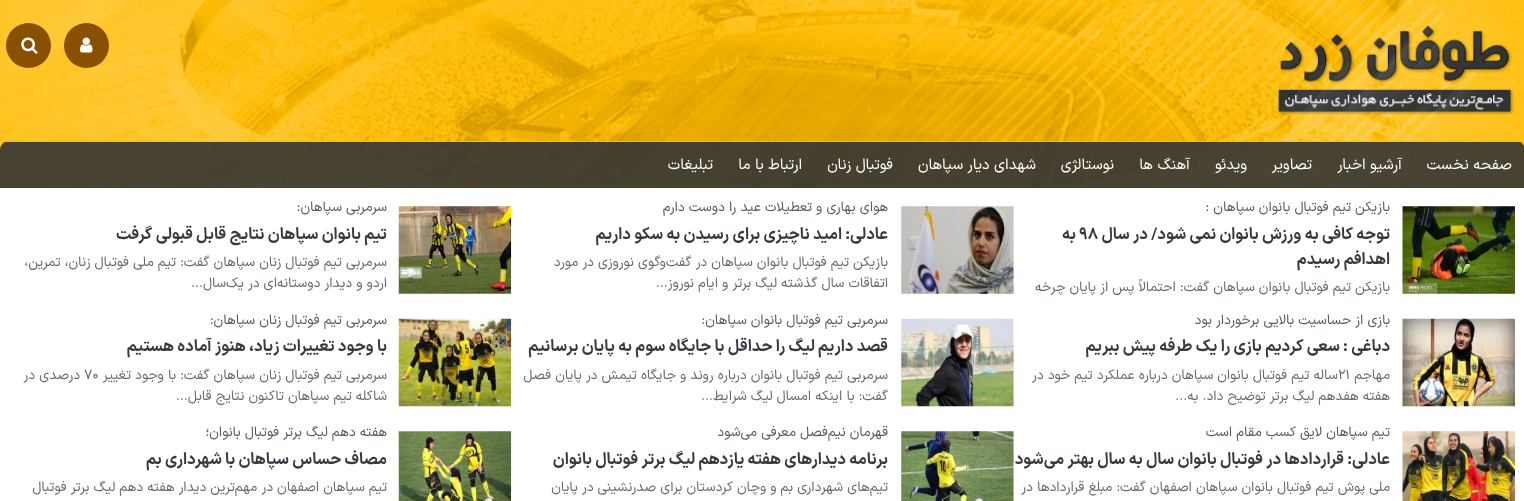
<?xml version="1.0" encoding="UTF-8"?>
<svg xmlns="http://www.w3.org/2000/svg" xmlns:xlink="http://www.w3.org/1999/xlink" width="1524" height="501">
  <rect width="100%" height="100%" fill="#ffffff" />
  <image x="0" y="0" width="1524" height="188" xlink:href="image1.png" />
  <image x="1277" y="25" width="237" height="90" xlink:href="image2.png" />
  <circle cx="86.5" cy="45.5" r="22.5" fill="#895001" />
  <image x="80" y="37" width="13" height="16" xlink:href="image3.png" />
  <circle cx="28.5" cy="45.5" r="22.5" fill="#895001" />
  <image x="21" y="37" width="17" height="17" xlink:href="image4.png" />
  <path d="M 9 141 h 1507 c 5 0 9 4 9 9 v 38 h -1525 v -38 c 0 -5 4 -9 9 -9 z" fill="#343434" fill-opacity="0.9" />
  <rect x="5" y="141" width="1516" height="1" fill="#f7b54e" />
  <image x="1402" y="206" width="113" height="88" xlink:href="image5.png" />
  <image x="901" y="206" width="113" height="88" xlink:href="image6.png" />
  <image x="398" y="206" width="114" height="88" xlink:href="image7.png" />
  <image x="1402" y="318" width="113" height="89" xlink:href="image8.png" />
  <image x="901" y="318" width="113" height="89" xlink:href="image9.png" />
  <image x="398" y="318" width="114" height="89" xlink:href="image10.png" />
  <image x="1402" y="431" width="113" height="70" xlink:href="image11.png" />
  <image x="901" y="431" width="113" height="70" xlink:href="image12.png" />
  <image x="398" y="431" width="114" height="70" xlink:href="image13.png" />
  <text x="1512" y="169" style="font-family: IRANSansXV; font-size: 15px; direction: rtl; fill: #ffffff">صفحه نخست</text>
  <text x="1402" y="169" style="font-family: IRANSansXV; font-size: 15px; direction: rtl; fill: #ffffff">آرشیو اخبار</text>
  <text x="1312" y="169" style="font-family: IRANSansXV; font-size: 15px; direction: rtl; fill: #ffffff">تصاویر</text>
  <text x="1247" y="169" style="font-family: IRANSansXV; font-size: 15px; direction: rtl; fill: #ffffff">ویدئو</text>
  <text x="1190" y="169" style="font-family: IRANSansXV; font-size: 15px; direction: rtl; fill: #ffffff">آهنگ ها</text>
  <text x="1114" y="169" style="font-family: IRANSansXV; font-size: 15px; direction: rtl; fill: #ffffff">نوستالژی</text>
  <text x="1036" y="169" style="font-family: IRANSansXV; font-size: 15px; direction: rtl; fill: #ffffff">شهدای دیار سپاهان</text>
  <text x="893" y="169" style="font-family: IRANSansXV; font-size: 15px; direction: rtl; fill: #ffffff">فوتبال زنان</text>
  <text x="802" y="169" style="font-family: IRANSansXV; font-size: 15px; direction: rtl; fill: #ffffff">ارتباط با ما</text>
  <text x="713" y="169" style="font-family: IRANSansXV; font-size: 15px; direction: rtl; fill: #ffffff">تبلیغات</text>
  <text x="1390" y="211" style="font-family: IRANSansXV; font-size: 13.75px; direction: rtl; fill: #545b62">بازیکن تیم فوتبال بانوان سپاهان :</text>
  <text x="1390" y="239" style="font-family: IRANSansXV; font-size: 16.25px; font-weight: bold; direction: rtl; fill: #343a40">توجه کافی به ورزش بانوان نمی شود/ در سال</text>
  <text x="1079" y="239" style="font-family: IRANSansXV; font-size: 16.25px; font-weight: bold; fill: #343a40">۹۸</text>
  <text x="1076" y="239" style="font-family: IRANSansXV; font-size: 16.25px; font-weight: bold; direction: rtl; fill: #343a40">به</text>
  <text x="1390" y="264" style="font-family: IRANSansXV; font-size: 16.25px; font-weight: bold; direction: rtl; fill: #343a40">اهدافم رسیدم</text>
  <text x="1390" y="291" style="font-family: IRANSansXV; font-size: 13.75px; direction: rtl; fill: #636b6f">بازیکن تیم فوتبال بانوان سپاهان گفت: احتمالاً پس از پایان چرخه</text>
  <text x="888" y="211" style="font-family: IRANSansXV; font-size: 13.75px; direction: rtl; fill: #545b62">هوای بهاری و تعطیلات عید را دوست دارم</text>
  <text x="888" y="239" style="font-family: IRANSansXV; font-size: 16.25px; font-weight: bold; direction: rtl; fill: #343a40">عادلی: امید ناچیزی برای رسیدن به سکو داریم</text>
  <text x="888" y="266" style="font-family: IRANSansXV; font-size: 13.75px; direction: rtl; fill: #636b6f">بازیکن تیم فوتبال بانوان سپاهان در گفت‌و‌گوی نوروزی در مورد</text>
  <text x="888" y="287" style="font-family: IRANSansXV; font-size: 13.75px; direction: rtl; fill: #636b6f">اتفاقات سال گذشته لیگ برتر و ایام نوروز...</text>
  <text x="387" y="211" style="font-family: IRANSansXV; font-size: 13.75px; direction: rtl; fill: #545b62">سرمربی سپاهان:</text>
  <text x="387" y="239" style="font-family: IRANSansXV; font-size: 16.25px; font-weight: bold; direction: rtl; fill: #343a40">تیم بانوان سپاهان نتایج قابل قبولی گرفت</text>
  <text x="387" y="266" style="font-family: IRANSansXV; font-size: 13.75px; direction: rtl; fill: #636b6f">سرمربی تیم فوتبال زنان سپاهان گفت: تیم ملی فوتبال زنان، تمرین،</text>
  <text x="387" y="287" style="font-family: IRANSansXV; font-size: 13.75px; direction: rtl; fill: #636b6f">اردو و دیدار دوستانه‌ای در یک‌سال...</text>
  <text x="1390" y="324" style="font-family: IRANSansXV; font-size: 13.75px; direction: rtl; fill: #545b62">بازی از حساسیت بالایی برخوردار بود</text>
  <text x="1390" y="351" style="font-family: IRANSansXV; font-size: 16.25px; font-weight: bold; direction: rtl; fill: #343a40">دباغی : سعی کردیم بازی را یک طرفه پیش ببریم</text>
  <text x="1390" y="379" style="font-family: IRANSansXV; font-size: 13.75px; direction: rtl; fill: #636b6f">مهاجم</text>
  <text x="1338" y="379" style="font-family: IRANSansXV; font-size: 13.75px; fill: #636b6f">۲۱</text>
  <text x="1338" y="379" style="font-family: IRANSansXV; font-size: 13.75px; direction: rtl; fill: #636b6f">ساله تیم فوتبال بانوان سپاهان درباره عملکرد تیم خود در</text>
  <text x="1390" y="400" style="font-family: IRANSansXV; font-size: 13.75px; direction: rtl; fill: #636b6f">هفته هفدهم لیگ برتر توضیح داد. به...</text>
  <text x="888" y="324" style="font-family: IRANSansXV; font-size: 13.75px; direction: rtl; fill: #545b62">سرمربی تیم فوتبال بانوان سپاهان:</text>
  <text x="888" y="351" style="font-family: IRANSansXV; font-size: 16.25px; font-weight: bold; direction: rtl; fill: #343a40">قصد داریم لیگ را حداقل با جایگاه سوم به پایان برسانیم</text>
  <text x="888" y="379" style="font-family: IRANSansXV; font-size: 13.75px; direction: rtl; fill: #636b6f">سرمربی تیم فوتبال بانوان درباره روند و جایگاه تیمش در پایان فصل</text>
  <text x="888" y="400" style="font-family: IRANSansXV; font-size: 13.75px; direction: rtl; fill: #636b6f">گفت: با اینکه امسال لیگ شرایط...</text>
  <text x="387" y="324" style="font-family: IRANSansXV; font-size: 13.75px; direction: rtl; fill: #545b62">سرمربی تیم فوتبال زنان سپاهان:</text>
  <text x="387" y="351" style="font-family: IRANSansXV; font-size: 16.25px; font-weight: bold; direction: rtl; fill: #343a40">با وجود تغییرات زیاد، هنوز آماده هستیم</text>
  <text x="387" y="379" style="font-family: IRANSansXV; font-size: 13.75px; direction: rtl; fill: #636b6f">سرمربی تیم فوتبال زنان سپاهان گفت: با وجود تغییر</text>
  <text x="84" y="379" style="font-family: IRANSansXV; font-size: 13.75px; fill: #636b6f">۷۰</text>
  <text x="80" y="379" style="font-family: IRANSansXV; font-size: 13.75px; direction: rtl; fill: #636b6f">درصدی در</text>
  <text x="387" y="400" style="font-family: IRANSansXV; font-size: 13.75px; direction: rtl; fill: #636b6f">شاکله تیم سپاهان تاکنون نتایج قابل...</text>
  <text x="1390" y="436" style="font-family: IRANSansXV; font-size: 13.75px; direction: rtl; fill: #545b62">تیم سپاهان لایق کسب مقام است</text>
  <text x="1390" y="464" style="font-family: IRANSansXV; font-size: 16.25px; font-weight: bold; direction: rtl; fill: #343a40">عادلی: قرارداد‌ها در فوتبال بانوان سال به سال بهتر می‌شود</text>
  <text x="1390" y="491" style="font-family: IRANSansXV; font-size: 13.75px; direction: rtl; fill: #636b6f">ملی پوش تیم فوتبال بانوان سپاهان اصفهان گفت: مبلغ قرارداد‌ها در</text>
  <text x="888" y="436" style="font-family: IRANSansXV; font-size: 13.75px; direction: rtl; fill: #545b62">قهرمان نیم‌فصل معرفی می‌شود</text>
  <text x="888" y="464" style="font-family: IRANSansXV; font-size: 16.25px; font-weight: bold; direction: rtl; fill: #343a40">برنامه دیدارهای هفته یازدهم لیگ برتر فوتبال بانوان</text>
  <text x="888" y="491" style="font-family: IRANSansXV; font-size: 13.75px; direction: rtl; fill: #636b6f">تیم‌های شهرداری بم و وچان کردستان برای صدرنشینی در پایان</text>
  <text x="387" y="436" style="font-family: IRANSansXV; font-size: 13.75px; direction: rtl; fill: #545b62">هفته دهم لیگ برتر فوتبال بانوان؛</text>
  <text x="387" y="464" style="font-family: IRANSansXV; font-size: 16.25px; font-weight: bold; direction: rtl; fill: #343a40">مصاف حساس سپاهان با شهرداری بم</text>
  <text x="387" y="491" style="font-family: IRANSansXV; font-size: 13.75px; direction: rtl; fill: #636b6f">تیم سپاهان اصفهان در مهم‌ترین دیدار هفته دهم لیگ برتر فوتبال</text>
</svg>
